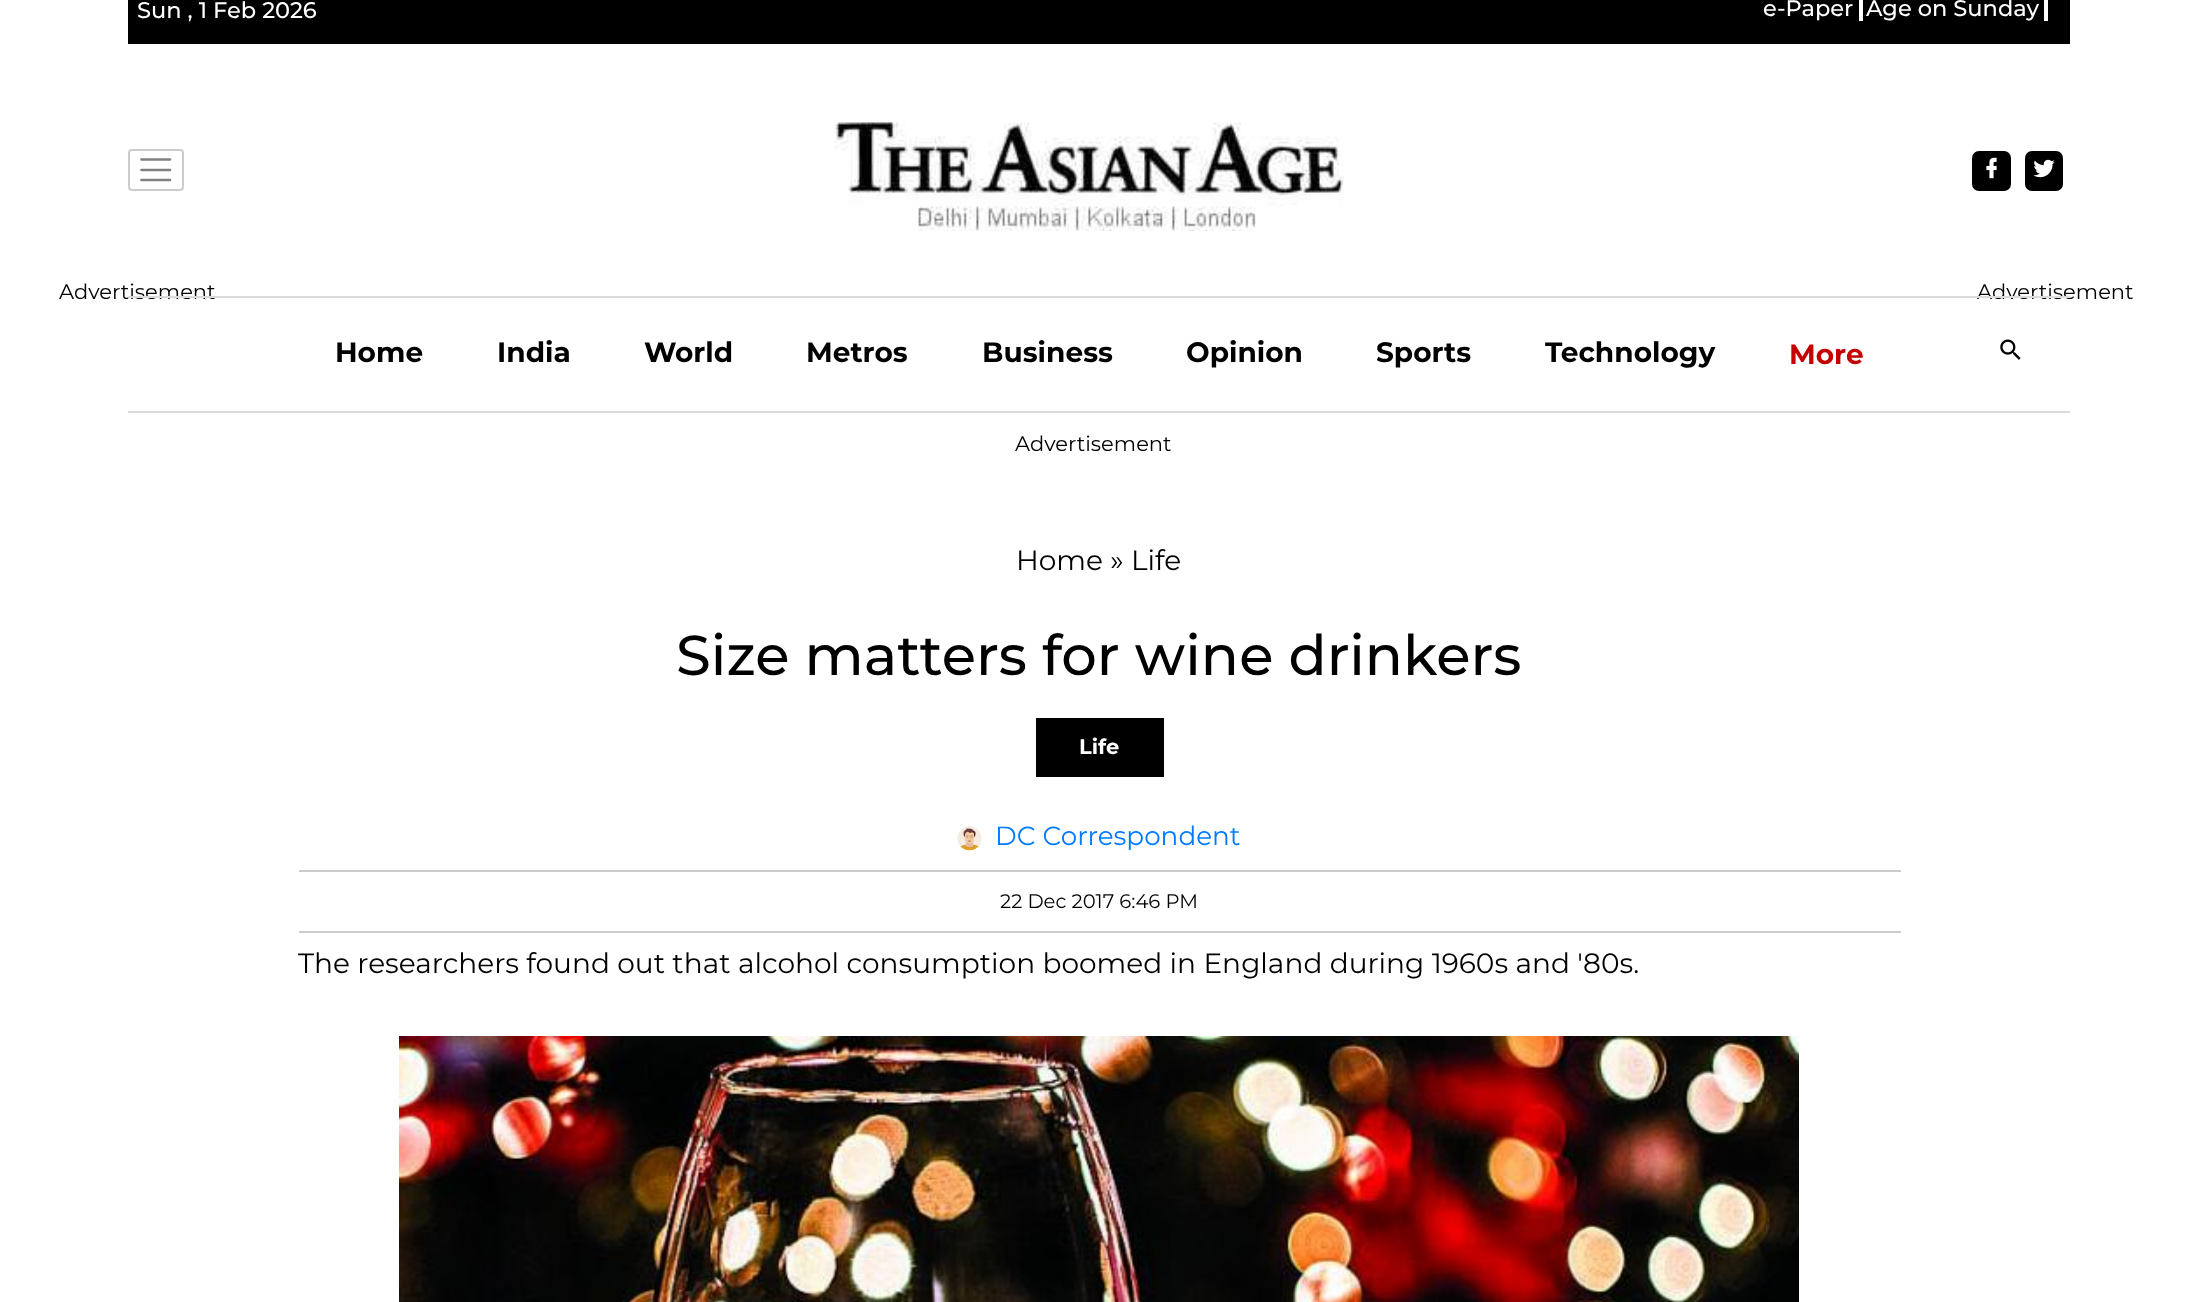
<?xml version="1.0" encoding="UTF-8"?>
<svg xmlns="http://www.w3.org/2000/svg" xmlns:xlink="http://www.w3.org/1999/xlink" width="2197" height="1302">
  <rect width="100%" height="100%" fill="#ffffff" />
  <rect x="128" width="1942" height="44" fill="#000000" />
  <rect x="1859" width="4" height="21" fill="#ffffff" />
  <rect x="2044" width="4" height="21" fill="#ffffff" />
  <path d="M 141.5 159.5 h 28.5 m -28.5 10.5 h 28.5 m -28.5 10 h 28.5" fill="none" stroke="#808080" stroke-width="2.6" stroke-linecap="round" />
  <rect x="129" y="150" width="54" height="40" rx="3" fill="none" stroke="#cccccc" stroke-width="2" />
  <image x="834" y="122" width="510" height="109" xlink:href="image1.png" />
  <rect x="1972" y="151" width="39" height="40" rx="7" fill="#000000" />
  <image x="1986" y="157" width="11" height="22" xlink:href="image2.png" />
  <rect x="2025" y="151" width="38" height="40" rx="7" fill="#000000" />
  <image x="2033" y="159" width="22" height="19" xlink:href="image3.png" />
  <rect x="128" y="411" width="1942" height="2" fill="#dbdbdb" />
  <image x="2000" y="339" width="21" height="21" xlink:href="image4.png" />
  <rect x="1036" y="718" width="128" height="59" fill="#000000" />
  <image x="957" y="826" width="25" height="25" xlink:href="image5.png" />
  <rect x="299" y="870" width="1602" height="2" fill="#cccccc" />
  <rect x="299" y="931" width="1602" height="2" fill="#cccccc" />
  <image x="399" y="1036" width="1400" height="266" xlink:href="image6.png" />
  <text x="137" y="18" style="font-family: Montserrat; font-size: 22.5px; font-weight: 500; fill: #ffffff">Sun , 1 Feb 2026</text>
  <text x="1763" y="16" style="font-family: Montserrat; font-size: 22.5px; font-weight: 500; fill: #ffffff">e-Paper</text>
  <text x="1866" y="16" style="font-family: Montserrat; font-size: 22.5px; font-weight: 500; fill: #ffffff">Age on Sunday</text>
  <text x="335" y="362" style="font-family: Montserrat; font-size: 28px; font-weight: bold; fill: #000000">Home</text>
  <text x="497" y="362" style="font-family: Montserrat; font-size: 28px; font-weight: bold; fill: #000000">India</text>
  <text x="644" y="362" style="font-family: Montserrat; font-size: 28px; font-weight: bold; fill: #000000">World</text>
  <text x="806" y="362" style="font-family: Montserrat; font-size: 28px; font-weight: bold; fill: #000000">Metros</text>
  <text x="982" y="362" style="font-family: Montserrat; font-size: 28px; font-weight: bold; fill: #000000">Business</text>
  <text x="1186" y="362" style="font-family: Montserrat; font-size: 28px; font-weight: bold; fill: #000000">Opinion</text>
  <text x="1376" y="362" style="font-family: Montserrat; font-size: 28px; font-weight: bold; fill: #000000">Sports</text>
  <text x="1545" y="362" style="font-family: Montserrat; font-size: 28px; font-weight: bold; fill: #000000">Technology</text>
  <text x="1789" y="364" style="font-family: Montserrat; font-size: 28px; font-weight: bold; fill: #c40000">More</text>
  <text x="1015" y="451" style="font-family: Montserrat; font-size: 21px; fill: #000000">Advertisement</text>
  <text x="1016" y="570" style="font-family: Montserrat; font-size: 28px; fill: #000000">Home » Life</text>
  <text x="676" y="675" style="font-family: Montserrat; font-size: 56px; font-weight: 500; fill: #000000">Size matters for wine drinkers</text>
  <text x="1079" y="754" style="font-family: Montserrat; font-size: 21px; font-weight: bold; fill: #ffffff">Life</text>
  <text x="995" y="845" style="font-family: Montserrat; font-size: 26.25px; fill: #007bff">DC Correspondent</text>
  <text x="1000" y="908" style="font-family: Montserrat; font-size: 19.6px; fill: #000000">22 Dec 2017 6:46 PM</text>
  <text x="298" y="973" style="font-family: Montserrat; font-size: 28px; fill: #000000">The researchers found out that alcohol consumption boomed in England during 1960s and '80s.</text>
  <text x="59" y="299" style="font-family: Montserrat; font-size: 21px; fill: #000000">Advertisement</text>
  <text x="1977" y="299" style="font-family: Montserrat; font-size: 21px; fill: #000000">Advertisement</text>
  <rect x="128" y="296" width="1942" height="2" fill="#dbdbdb" />
</svg>
